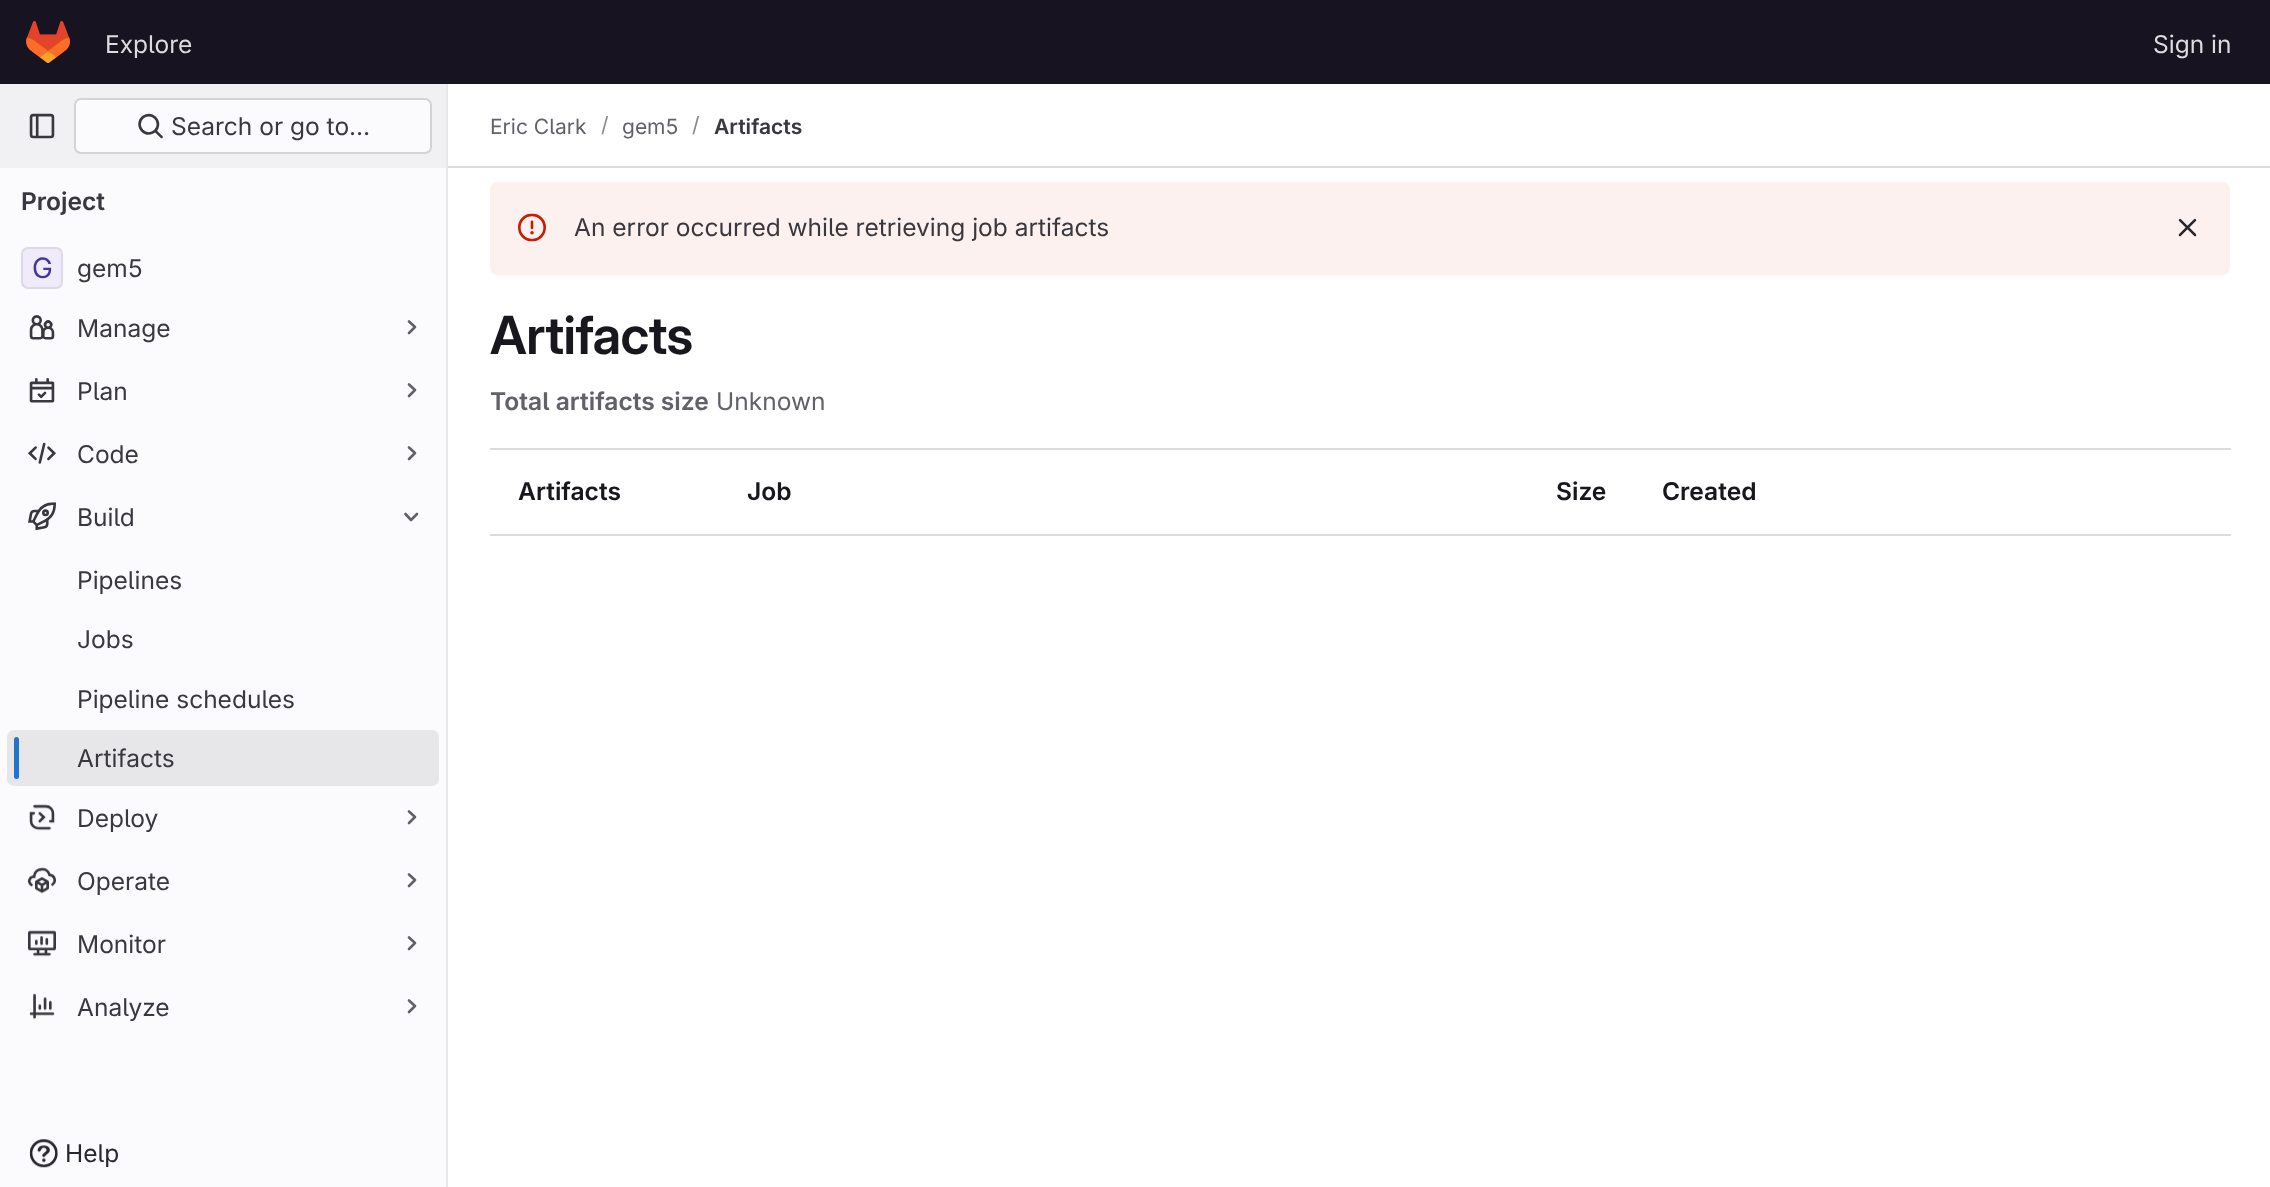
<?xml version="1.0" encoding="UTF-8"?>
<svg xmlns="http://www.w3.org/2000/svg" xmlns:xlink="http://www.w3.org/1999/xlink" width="2270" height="1187">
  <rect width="100%" height="100%" fill="#ffffff" />
  <rect width="2270" height="84" fill="#171321" />
  <image x="26" y="21" width="44" height="42" xlink:href="image1.png" />
  <rect y="168" width="446" height="1019" fill="#fbfafd" />
  <rect x="446" y="84" width="2" height="1103" fill="#e7e6e9" />
  <rect y="84" width="446" height="84" fill="#f1f0f3" />
  <image x="29" y="113" width="26" height="26" xlink:href="image2.png" />
  <rect x="74" y="98" width="358" height="56" rx="7" fill="#fbfafd" />
  <rect x="75" y="99" width="356" height="54" rx="6" fill="none" stroke="#050506" stroke-opacity="0.16" stroke-width="2" />
  <image x="138" y="113" width="25" height="26" xlink:href="image3.png" />
  <rect x="21" y="247" width="42" height="42" rx="7" fill="#efebfa" />
  <rect x="22" y="248" width="40" height="40" rx="6" fill="none" stroke="#050506" stroke-opacity="0.08" stroke-width="2" />
  <image x="29" y="315" width="26" height="25" xlink:href="image4.png" />
  <path d="M 409 321.5 l 6 5.5 l -6 6" fill="none" stroke="#626168" stroke-width="2.6" stroke-linecap="round" stroke-linejoin="round" />
  <image x="29" y="378" width="26" height="25" xlink:href="image5.png" />
  <path d="M 409 384.5 l 6 5.5 l -6 6" fill="none" stroke="#626168" stroke-width="2.6" stroke-linecap="round" stroke-linejoin="round" />
  <image x="28" y="442" width="28" height="22" xlink:href="image6.png" />
  <path d="M 409 447.5 l 6 5.5 l -6 6" fill="none" stroke="#626168" stroke-width="2.6" stroke-linecap="round" stroke-linejoin="round" />
  <image x="28" y="502" width="28" height="29" xlink:href="image7.png" />
  <path d="M 417 514 l -6 6 l -5.5 -6" fill="none" stroke="#626168" stroke-width="2.6" stroke-linecap="round" stroke-linejoin="round" />
  <rect x="7" y="730" width="432" height="56" rx="7" fill="#e7e6e9" />
  <rect x="14" y="737" width="5" height="42" rx="2.5" fill="#1f75cb" />
  <image x="29" y="804" width="26" height="27" xlink:href="image8.png" />
  <path d="M 409 811.5 l 6 5.5 l -6 6" fill="none" stroke="#626168" stroke-width="2.6" stroke-linecap="round" stroke-linejoin="round" />
  <image x="28" y="867" width="28" height="27" xlink:href="image9.png" />
  <path d="M 409 874.5 l 6 5.5 l -6 6" fill="none" stroke="#626168" stroke-width="2.6" stroke-linecap="round" stroke-linejoin="round" />
  <image x="28" y="930" width="28" height="27" xlink:href="image10.png" />
  <path d="M 409 937.5 l 6 5.5 l -6 6" fill="none" stroke="#626168" stroke-width="2.6" stroke-linecap="round" stroke-linejoin="round" />
  <image x="29" y="993" width="26" height="27" xlink:href="image11.png" />
  <path d="M 409 1000.5 l 6 5.5 l -6 6" fill="none" stroke="#626168" stroke-width="2.6" stroke-linecap="round" stroke-linejoin="round" />
  <image x="29" y="1139" width="29" height="29" xlink:href="image12.png" />
  <rect x="448" y="166" width="1822" height="2" fill="#dcdcde" />
  <rect x="490" y="182" width="1740" height="93" rx="7" fill="#fcf1ef" />
  <image x="518" y="213" width="28" height="29" xlink:href="image13.png" />
  <image x="2178" y="218" width="19" height="19" xlink:href="image14.png" />
  <rect x="490" y="448" width="1741" height="2" fill="#dcdcde" />
  <rect x="490" y="534" width="1741" height="2" fill="#dcdcde" />
  <text x="105" y="53" style="font-family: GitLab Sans; font-size: 24.5px; fill: #dcdcde">Explore</text>
  <text x="2153" y="53" style="font-family: GitLab Sans; font-size: 24.5px; fill: #dcdcde">Sign in</text>
  <text x="171" y="135" style="font-family: GitLab Sans; font-size: 24.5px; fill: #3a383f">Search or go to…</text>
  <text x="21" y="210" style="font-family: 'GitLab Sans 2'; font-size: 24.5px; font-weight: 600; fill: #3a383f">Project</text>
  <text x="32" y="278" style="font-family: 'GitLab Sans 2'; font-size: 28px; fill: #453894">G</text>
  <text x="77" y="277" style="font-family: GitLab Sans; font-size: 24.5px; fill: #3a383f">gem5</text>
  <text x="77" y="337" style="font-family: GitLab Sans; font-size: 24.5px; fill: #3a383f">Manage</text>
  <text x="77" y="400" style="font-family: GitLab Sans; font-size: 24.5px; fill: #3a383f">Plan</text>
  <text x="77" y="463" style="font-family: GitLab Sans; font-size: 24.5px; fill: #3a383f">Code</text>
  <text x="77" y="526" style="font-family: GitLab Sans; font-size: 24.5px; fill: #3a383f">Build</text>
  <text x="77" y="589" style="font-family: GitLab Sans; font-size: 24.5px; fill: #3a383f">Pipelines</text>
  <text x="77" y="648" style="font-family: GitLab Sans; font-size: 24.5px; fill: #3a383f">Jobs</text>
  <text x="77" y="708" style="font-family: GitLab Sans; font-size: 24.5px; fill: #3a383f">Pipeline schedules</text>
  <text x="77" y="767" style="font-family: GitLab Sans; font-size: 24.5px; fill: #3a383f">Artifacts</text>
  <text x="77" y="827" style="font-family: GitLab Sans; font-size: 24.5px; fill: #3a383f">Deploy</text>
  <text x="77" y="890" style="font-family: GitLab Sans; font-size: 24.5px; fill: #3a383f">Operate</text>
  <text x="77" y="953" style="font-family: GitLab Sans; font-size: 24.5px; fill: #3a383f">Monitor</text>
  <text x="77" y="1016" style="font-family: GitLab Sans; font-size: 24.5px; fill: #3a383f">Analyze</text>
  <text x="65" y="1162" style="font-family: GitLab Sans; font-size: 24.5px; fill: #28272d">Help</text>
  <text x="490" y="134" style="font-family: GitLab Sans; font-size: 21px; fill: #626168">Eric Clark</text>
  <text x="601" y="132" style="font-family: GitLab Sans; font-size: 21px; fill: #89888d">/</text>
  <text x="622" y="134" style="font-family: GitLab Sans; font-size: 21px; fill: #626168">gem5</text>
  <text x="692" y="132" style="font-family: GitLab Sans; font-size: 21px; fill: #89888d">/</text>
  <text x="714" y="134" style="font-family: 'GitLab Sans 2'; font-size: 21px; font-weight: 600; fill: #3a383f">Artifacts</text>
  <text x="574" y="236" style="font-family: GitLab Sans; font-size: 24.5px; fill: #3a383f">An error occurred while retrieving job artifacts</text>
  <text x="490" y="354" style="font-family: GitLab Sans; font-size: 52.5px; font-weight: 600; letter-spacing: -0.5px; fill: #18171d">Artifacts</text>
  <text x="490" y="410" style="font-family: 'GitLab Sans 2'; font-size: 24.5px; font-weight: 600; fill: #626168">Total artifacts size</text>
  <text x="716" y="410" style="font-family: GitLab Sans; font-size: 24.5px; fill: #626168">Unknown</text>
  <text x="518" y="500" style="font-family: 'GitLab Sans 2'; font-size: 24.5px; font-weight: 600; fill: #18171d">Artifacts</text>
  <text x="747" y="500" style="font-family: 'GitLab Sans 2'; font-size: 24.5px; font-weight: 600; fill: #18171d">Job</text>
  <text x="1556" y="500" style="font-family: 'GitLab Sans 2'; font-size: 24.5px; font-weight: 600; fill: #18171d">Size</text>
  <text x="1662" y="500" style="font-family: 'GitLab Sans 2'; font-size: 24.5px; font-weight: 600; fill: #18171d">Created</text>
</svg>
